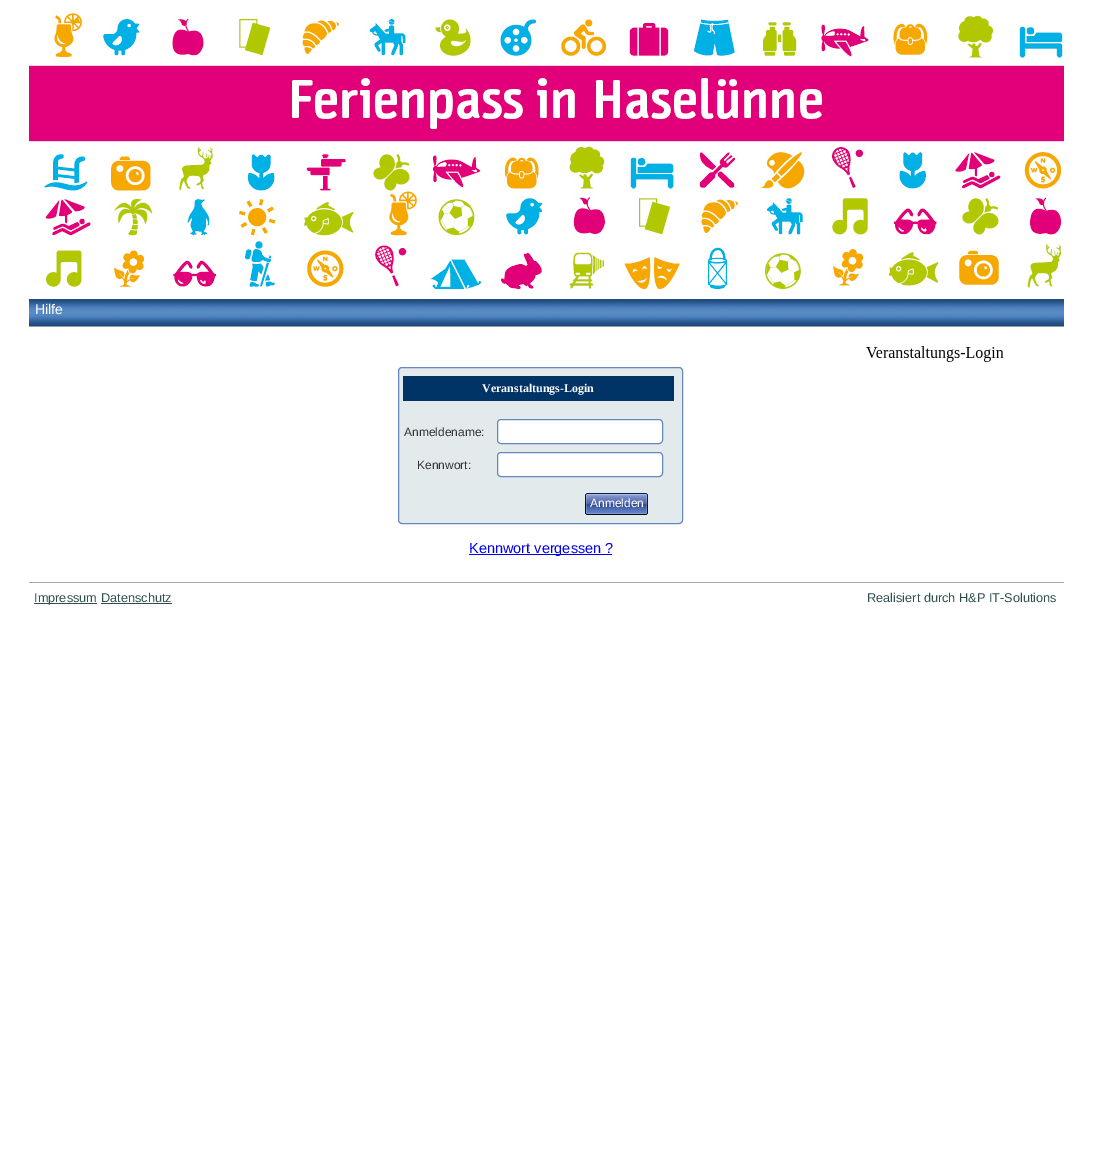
%!PS-Adobe-3.0
%%BoundingBox: 0 0 1093 1172
%%LanguageLevel: 3
%%Pages: 1
%%EndComments
%%BeginProlog
/f { fill } bind def
/S { stroke } bind def
/q { gsave } bind def
/Q { grestore } bind def
/fn { [ exch dup neg 0 0 3 -1 roll 0 0 ] selectfont } def
/tx { moveto show } def
/bx { rectfill } def
/rr { 5 dict begin { /r /h /w /y /x } { exch def } forall
  x r add y moveto x w add y 2 copy h add r arct x w add y h add x 1 index r arct
  x y h add x y r arct x y 2 copy exch w add exch r arct closepath end } def
/im { 5 dict begin { /h /w /y /x /name } { exch def } forall
  gsave x y translate w h scale
  w h 8 [w 0 0 h 0 0] name (r) file false 3 colorimage grestore end } def
%%EndProlog
%%BeginSetup
<< /PageSize [1093 1172] >> setpagedevice
%%EndSetup
%%Page: 1 1
0 1172 translate 1 -1 scale
4 setmiterlimit
1 setgray
0 0 1093 1172 bx
(image0.raw) 29 10 1035 317 im
/LiberationSans-Regular 14 fn
(Hilfe) 35 314 tx
(image1.raw) 866 346 138 16 im
0.89 0.918 0.922 setrgbcolor
398.5 367.5 284 156 3.5 rr q f Q
0.404 0.533 0.745 setrgbcolor
S
0 0.2 0.4 setrgbcolor
403 376 271 25 bx
/LiberationSerif-Bold 12 fn
1 setgray
(Veranstaltungs-Login) 482 392 tx
/LiberationSans-Regular 12 fn
0.2 setgray
(Anmeldename:) 404 436 tx
1 setgray
497.5 419.5 165 24 3.5 rr q f Q
0.404 0.533 0.745 setrgbcolor
S
0.2 setgray
(Kennwort:) 417 469 tx
1 setgray
497.5 452.5 165 24 3.5 rr q f Q
0.404 0.533 0.745 setrgbcolor
S
(image2.raw) 645 493 3 22 im
(image3.raw) 585 493 60 22 im
1 setgray
(Anmelden) 590 507 tx
0 0 0.933 setrgbcolor
469 554 143 1 bx
/LiberationSans-Regular 14.5 fn
(Kennwort vergessen ?) 469 553 tx
0.663 setgray
29 582 1035 1 bx
0.184 0.31 0.31 setrgbcolor
34 603 63 1 bx
/LiberationSans-Regular 12.75 fn
(Impressum) 34 602 tx
(Datenschutz) 101 602 tx
101 603 71 1 bx
(Realisiert durch H&P IT-Solutions) 867 602 tx
showpage
%%EOF
